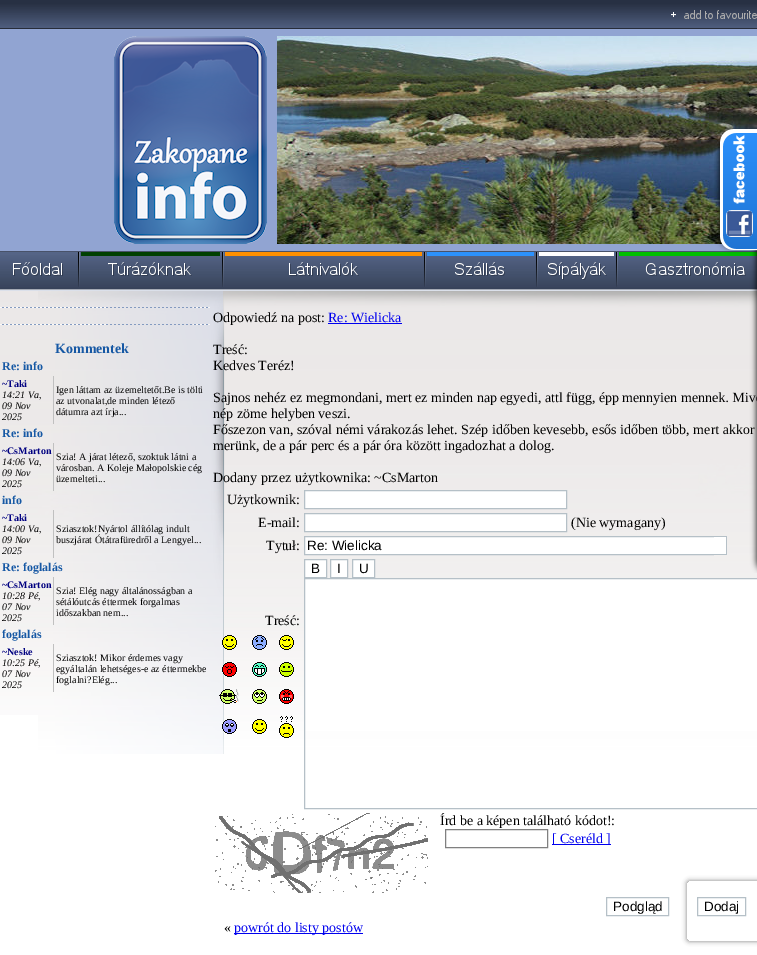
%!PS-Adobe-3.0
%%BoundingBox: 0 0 757 955
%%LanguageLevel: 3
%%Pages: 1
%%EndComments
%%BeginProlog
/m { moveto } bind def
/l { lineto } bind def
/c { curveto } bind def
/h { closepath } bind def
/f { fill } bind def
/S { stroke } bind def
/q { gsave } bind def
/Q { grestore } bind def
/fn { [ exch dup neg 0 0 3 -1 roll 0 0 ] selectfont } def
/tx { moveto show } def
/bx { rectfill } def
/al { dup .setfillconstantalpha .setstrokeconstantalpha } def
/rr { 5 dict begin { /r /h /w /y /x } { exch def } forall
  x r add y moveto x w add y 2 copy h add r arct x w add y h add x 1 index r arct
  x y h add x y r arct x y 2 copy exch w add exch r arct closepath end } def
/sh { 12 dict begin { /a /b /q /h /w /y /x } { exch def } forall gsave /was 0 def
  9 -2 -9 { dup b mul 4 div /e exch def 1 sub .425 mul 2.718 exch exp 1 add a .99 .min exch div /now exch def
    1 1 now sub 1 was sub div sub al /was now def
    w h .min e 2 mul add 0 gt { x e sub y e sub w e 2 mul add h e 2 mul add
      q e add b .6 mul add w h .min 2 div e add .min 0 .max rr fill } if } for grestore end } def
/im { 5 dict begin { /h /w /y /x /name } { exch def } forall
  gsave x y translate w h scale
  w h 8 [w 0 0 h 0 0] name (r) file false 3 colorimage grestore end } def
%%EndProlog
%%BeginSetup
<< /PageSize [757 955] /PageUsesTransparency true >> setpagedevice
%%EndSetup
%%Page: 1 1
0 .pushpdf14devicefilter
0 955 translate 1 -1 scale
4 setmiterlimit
1 setgray
0 0 757 955 bx
(image0.raw) 0 0 757 715 im
(image4.raw) 277 36 480 208 im
(image10.raw) 617 252 140 33 im
(image11.raw) 38 291 719 463 im
/LiberationSerif-Regular 14 fn
0 setgray
(Sajnos nehéz ez megmondani, mert ez minden nap egyedi, attl függ, épp mennyien mennek. Miv) 213 402 tx
(Főszezon van, szóval némi várakozás lehet. Szép időben kevesebb, esős időben több, mert akkor) 213 434 tx
1 setgray
304.5 536.5 m 726.5 536.5 l 726.5 554.5 l 304.5 554.5 l h q f Q
0.71 0.753 0.78 setrgbcolor
S
(image1.raw) 714 124 43 449 im
(image2.raw) 671 10 86 9 im
(image3.raw) 114 36 153 208 im
(image5.raw) 13 252 66 35 im
(image6.raw) 79 252 144 35 im
(image7.raw) 223 252 202 35 im
(image8.raw) 425 252 112 35 im
(image9.raw) 537 252 80 35 im
(image12.raw) 0 307 210 1 im
(image13.raw) 0 324 210 1 im
/LiberationSerif-Bold 14 fn
0.086 0.345 0.643 setrgbcolor
(Kommentek) 55 353 tx
/LiberationSerif-Bold 12 fn
(Re: info) 2 370 tx
0.753 setgray
53 376 1 48 bx
/LiberationSerif-Bold 10 fn
0 0 0.502 setrgbcolor
(~Taki) 2 387 tx
/LiberationSerif-Italic 10 fn
0 setgray
(14:21 Va,) 2 398 tx
(09 Nov) 2 409 tx
(2025) 2 420 tx
/LiberationSerif-Regular 10 fn
(Igen láttam az üzemeltetőt.Be is tölti) 56 393 tx
(az utvonalat,de minden létező) 56 404 tx
(dátumra azt írja...) 56 415 tx
/LiberationSerif-Bold 12 fn
0.086 0.345 0.643 setrgbcolor
(Re: info) 2 437 tx
0.753 setgray
53 443 1 48 bx
/LiberationSerif-Bold 10 fn
0 0 0.502 setrgbcolor
(~CsMarton) 2 454 tx
/LiberationSerif-Italic 10 fn
0 setgray
(14:06 Va,) 2 465 tx
(09 Nov) 2 476 tx
(2025) 2 487 tx
/LiberationSerif-Regular 10 fn
(Szia! A járat létező, szoktuk látni a) 56 460 tx
(városban. A Koleje Małopolskie cég) 56 471 tx
(üzemelteti...) 56 482 tx
/LiberationSerif-Bold 12 fn
0.086 0.345 0.643 setrgbcolor
(info) 2 504 tx
0.753 setgray
53 510 1 48 bx
/LiberationSerif-Bold 10 fn
0 0 0.502 setrgbcolor
(~Taki) 2 521 tx
/LiberationSerif-Italic 10 fn
0 setgray
(14:00 Va,) 2 532 tx
(09 Nov) 2 543 tx
(2025) 2 554 tx
/LiberationSerif-Regular 10 fn
(Sziasztok!Nyártol állítólag indult) 56 532 tx
(buszjárat Ótátrafüredről a Lengyel...) 56 543 tx
/LiberationSerif-Bold 12 fn
0.086 0.345 0.643 setrgbcolor
(Re: foglalás) 2 571 tx
0.753 setgray
53 577 1 48 bx
/LiberationSerif-Bold 10 fn
0 0 0.502 setrgbcolor
(~CsMarton) 2 588 tx
/LiberationSerif-Italic 10 fn
0 setgray
(10:28 Pé,) 2 599 tx
(07 Nov) 2 610 tx
(2025) 2 621 tx
/LiberationSerif-Regular 10 fn
(Szia! Elég nagy általánosságban a) 56 594 tx
(sétálóutcás éttermek forgalmas) 56 605 tx
(időszakban nem...) 56 616 tx
/LiberationSerif-Bold 12 fn
0.086 0.345 0.643 setrgbcolor
(foglalás) 2 638 tx
0.753 setgray
53 644 1 48 bx
/LiberationSerif-Bold 10 fn
0 0 0.502 setrgbcolor
(~Neske) 2 655 tx
/LiberationSerif-Italic 10 fn
0 setgray
(10:25 Pé,) 2 666 tx
(07 Nov) 2 677 tx
(2025) 2 688 tx
/LiberationSerif-Regular 10 fn
(Sziasztok! Mikor érdemes vagy) 56 661 tx
(egyáltalán lehetséges-e az éttermekbe) 56 672 tx
(foglalni?Elég...) 56 683 tx
/LiberationSerif-Regular 14 fn
(Odpowiedź na post:) 213 322 tx
0 0 0.933 setrgbcolor
(Re: Wielicka) 328 322 tx
328 323 74 1 bx
0 setgray
(Treść:) 213 354 tx
(Kedves Teréz!) 213 370 tx
(nép zöme helyben veszi.) 213 418 tx
(merünk, de a pár perc és a pár óra között ingadozhat a dolog.) 213 450 tx
(Dodany przez użytkownika: ~CsMarton) 213 482 tx
(Użytkownik:) 227 504 tx
1 setgray
304.5 490.5 m 566.5 490.5 l 566.5 508.5 l 304.5 508.5 l h q f Q
0.71 0.753 0.78 setrgbcolor
S
0 setgray
(E-mail:) 258 527 tx
1 setgray
304.5 513.5 m 566.5 513.5 l 566.5 531.5 l 304.5 531.5 l h q f Q
0.71 0.753 0.78 setrgbcolor
S
0 setgray
(\(Nie wymagany\)) 571 527 tx
(Tytuł:) 266 550 tx
/LiberationSans-Regular 13.5 fn
(Re: Wielicka) 307 550 tx
1 setgray
304.5 559.5 m 326.5 559.5 l 326.5 577.5 l 304.5 577.5 l h q f Q
0.71 0.753 0.78 setrgbcolor
S
0 setgray
(B) 311 573 tx
1 setgray
330.5 559.5 m 347.5 559.5 l 347.5 577.5 l 330.5 577.5 l h q f Q
0.71 0.753 0.78 setrgbcolor
S
0 setgray
(I) 337 573 tx
1 setgray
352.5 559.5 m 374.5 559.5 l 374.5 577.5 l 352.5 577.5 l h q f Q
0.71 0.753 0.78 setrgbcolor
S
0 setgray
(U) 359 573 tx
1 setgray
305 579 452 152 bx
0.71 0.753 0.78 setrgbcolor
304.5 578.5 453 230 rectstroke
/LiberationSerif-Regular 14 fn
0 setgray
(Treść:) 265 625 tx
(image14.raw) 222 635 15 15 im
(image15.raw) 252 635 15 15 im
(image16.raw) 279 635 15 15 im
(image17.raw) 222 662 15 15 im
(image18.raw) 252 662 15 15 im
(image19.raw) 279 662 15 15 im
(image20.raw) 219 689 20 15 im
(image21.raw) 252 689 15 15 im
(image22.raw) 279 689 15 15 im
(image23.raw) 222 719 15 15 im
(image24.raw) 252 719 15 15 im
(image25.raw) 279 716 15 22 im
(image26.raw) 215 813 213 80 im
(Írd be a képen található kódot!:) 440 825 tx
0.502 setgray
445.5 829.5 102 18 rectstroke
0 0 0.933 setrgbcolor
552 844 59 1 bx
([ Cseréld ]) 552 843 tx
0.71 0.753 0.78 setrgbcolor
606.5 897.5 62 18 rectstroke
/LiberationSans-Regular 13.5 fn
0 setgray
(Podgląd) 613 911 tx
0.71 0.753 0.78 setrgbcolor
697.5 897.5 48 18 rectstroke
0 setgray
(Dodaj) 704 911 tx
/LiberationSerif-Regular 14 fn
(«) 224 932 tx
0 0 0.933 setrgbcolor
234 933 129 1 bx
(powrót do listy postów) 234 932 tx
q
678 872 m 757 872 l 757 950 l 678 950 l h 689 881 m 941 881 l 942 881 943 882 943 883 c 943 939 l 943 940 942 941 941 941 c 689 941 l 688 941 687 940 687 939 c 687 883 l 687 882 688 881 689 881 c h eoclip newpath
0.502 setgray
687 881 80 60 2 2.5 1 sh
Q
.poppdf14devicefilter showpage
%%EOF
